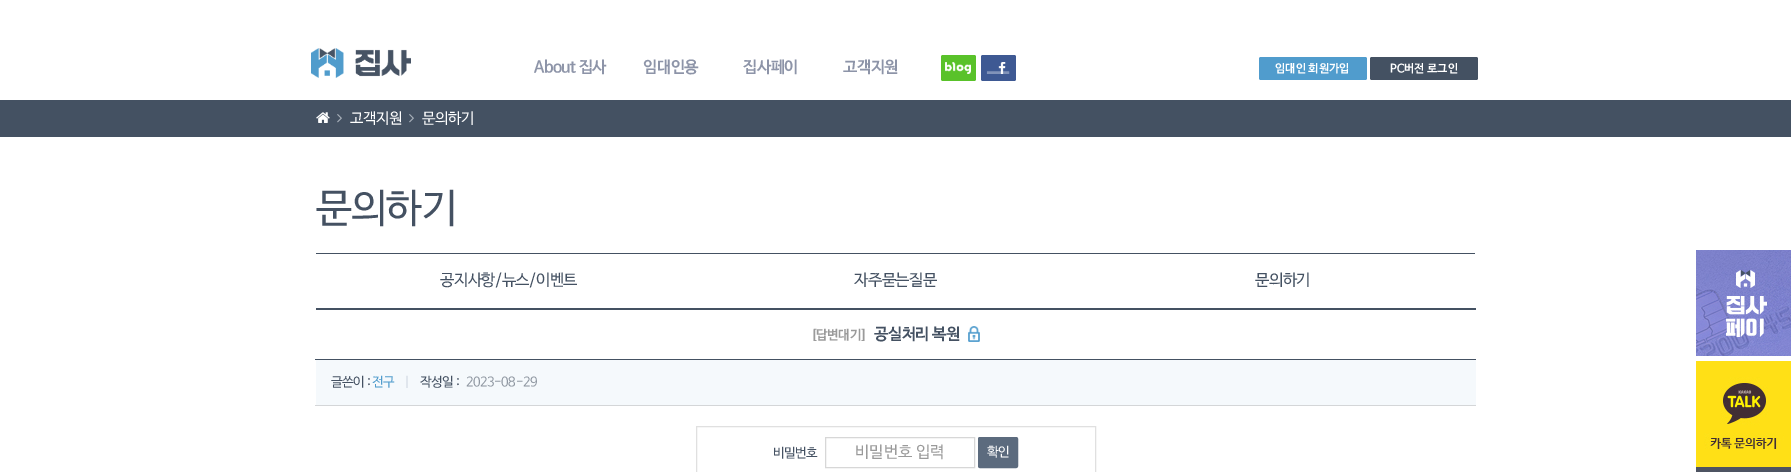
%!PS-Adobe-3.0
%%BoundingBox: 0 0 1791 472
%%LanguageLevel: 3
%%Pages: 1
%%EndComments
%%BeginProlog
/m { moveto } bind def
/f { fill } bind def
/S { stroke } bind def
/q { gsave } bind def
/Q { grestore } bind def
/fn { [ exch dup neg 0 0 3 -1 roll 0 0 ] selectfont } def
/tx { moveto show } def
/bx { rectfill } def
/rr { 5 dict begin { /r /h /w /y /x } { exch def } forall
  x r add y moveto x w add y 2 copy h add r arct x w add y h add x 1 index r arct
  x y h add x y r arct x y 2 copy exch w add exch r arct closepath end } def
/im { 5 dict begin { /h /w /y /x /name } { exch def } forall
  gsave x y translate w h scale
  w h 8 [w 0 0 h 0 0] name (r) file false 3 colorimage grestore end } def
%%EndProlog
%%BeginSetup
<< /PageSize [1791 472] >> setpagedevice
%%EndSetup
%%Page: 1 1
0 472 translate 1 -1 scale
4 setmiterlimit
1 setgray
0 0 1791 472 bx
(image0.raw) 311 48 100 30 im
/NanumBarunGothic-Bold 16 fn
0.553 0.58 0.659 setrgbcolor
534 72 m -0.5 0 (About 집사) ashow
643 72 m -0.5 0 (임대인용) ashow
743 72 m -0.5 0 (집사페이) ashow
843 72 m -0.5 0 (고객지원) ashow
0.349 0.761 0.165 setrgbcolor
941 55 35 26 2 rr f
(image1.raw) 945 62 26 12 im
0.243 0.349 0.576 setrgbcolor
981 55 35 26 2 rr f
(image2.raw) 986 62 24 12 im
0.314 0.612 0.804 setrgbcolor
1259 57 108 23 2 rr f
/NanumBarunGothic-Bold 11.5 fn
1 setgray
(임대인 회원가입) 1275 72 tx
0.267 0.318 0.384 setrgbcolor
1370 57 108 23 2 rr f
1 setgray
(PC버전 로그인) 1390 72 tx
0.267 0.318 0.384 setrgbcolor
0 100 1791 37 bx
(image3.raw) 316 112 14 11 im
(image4.raw) 337 114 5 9 im
/NanumBarunGothic-Regular 15 fn
1 setgray
350 123 m -0.5 0 (고객지원) ashow
(image4.raw) 409 114 5 9 im
422 123 m -0.5 0 (문의하기) ashow
/NanumBarunGothic-Regular 40 fn
0.267 0.318 0.384 setrgbcolor
316 221 m -0.5 0 (문의하기) ashow
316 253 1159 1 bx
/NanumBarunGothic-Regular 16 fn
440 285 m -0.5 0 (공지사항/뉴스/이벤트) ashow
854 285 m -0.5 0 (자주묻는질문) ashow
1255 285 m -0.5 0 (문의하기) ashow
316 308 1160 2 bx
315 359 1161 1 bx
/NanumBarunGothic-Bold 13 fn
0.604 setgray
811 339 m -0.5 0 ([답변대기]) ashow
/NanumBarunGothic-Bold 16 fn
0.267 0.318 0.384 setrgbcolor
874 339 m -0.5 0 (공실처리 복원) ashow
(image5.raw) 968 326 12 16 im
0.961 0.976 0.988 setrgbcolor
316 360 1160 45 bx
0.831 0.839 0.847 setrgbcolor
315 405 1161 1 bx
/NanumBarunGothic-Regular 13 fn
0.267 0.318 0.384 setrgbcolor
331 386 m -0.5 0 (글쓴이 :) ashow
0.314 0.612 0.804 setrgbcolor
372 386 m -0.5 0 (전구) ashow
0.812 0.843 0.882 setrgbcolor
404 386 m -0.5 0 (|) ashow
0.267 0.318 0.384 setrgbcolor
420 386 m -0.5 0 (작성일 :) ashow
0.561 0.592 0.631 setrgbcolor
466 386 m -0.5 0 (2023-08-29) ashow
0.878 setgray
696.5 426.5 399 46 rectstroke
0.267 0.318 0.384 setrgbcolor
773 457 m -0.5 0 (비밀번호) ashow
0.843 setgray
825.5 437.5 149 30 rectstroke
/NanumBarunGothic-Regular 16 fn
0.604 setgray
(비밀번호 입력) 855 457 tx
0.361 0.42 0.494 setrgbcolor
978.5 437.5 39 30 1.5 rr q f Q
S
/NanumBarunGothic-Regular 13 fn
1 setgray
987 456 m -0.5 0 (확인) ashow
(image6.raw) 1696 250 95 106 im
(image7.raw) 1696 361 95 106 im
0.306 0.329 0.384 setrgbcolor
1696 467 95 5 bx
showpage
%%EOF
